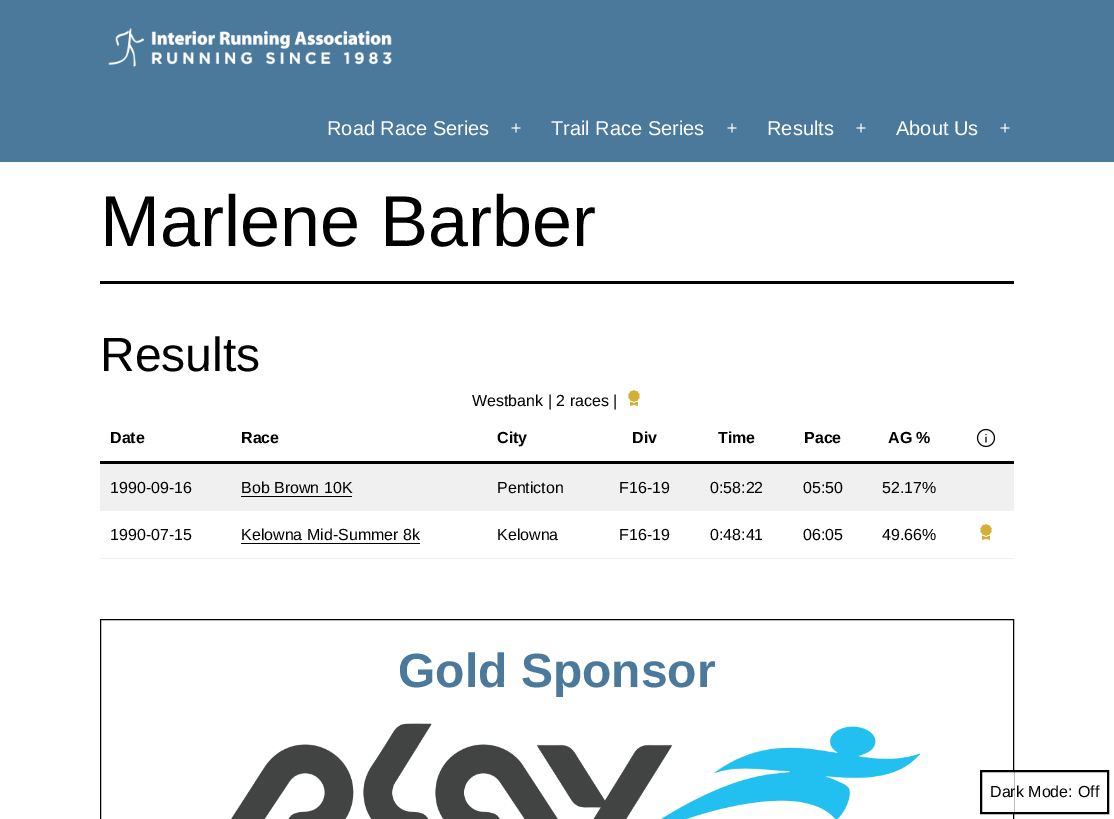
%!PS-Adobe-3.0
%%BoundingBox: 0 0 1114 819
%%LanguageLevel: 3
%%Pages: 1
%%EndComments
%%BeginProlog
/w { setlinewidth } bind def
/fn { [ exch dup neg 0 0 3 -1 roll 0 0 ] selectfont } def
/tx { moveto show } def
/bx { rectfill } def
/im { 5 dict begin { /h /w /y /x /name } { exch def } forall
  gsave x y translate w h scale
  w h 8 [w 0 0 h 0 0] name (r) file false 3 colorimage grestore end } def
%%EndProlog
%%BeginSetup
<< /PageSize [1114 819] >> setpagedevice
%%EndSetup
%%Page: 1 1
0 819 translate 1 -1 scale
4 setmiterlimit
1 setgray
0 0 1114 819 bx
0.29 0.475 0.612 setrgbcolor
0 0 1114 162 bx
(image0.raw) 108 28 284 39 im
/LiberationSans-Regular 20 fn
1 setgray
(Road Race Series) 327 135 tx
(image1.raw) 511 123 10 10 im
(Trail Race Series) 551 135 tx
(image1.raw) 727 123 10 10 im
(Results) 767 135 tx
(image1.raw) 856 123 10 10 im
(About Us) 896 135 tx
(image1.raw) 1000 123 10 10 im
0 setgray
100 281 914 3 bx
/LiberationSans-Regular 72 fn
(Marlene Barber) 100 246 tx
/LiberationSans-Regular 48 fn
(Results) 100 371 tx
0.941 setgray
100 558 914 1 bx
/LiberationSans-Regular 16 fn
0 setgray
(Westbank | 2 races |) 472 406 tx
(image2.raw) 628 390 12 16 im
100 461 914 3 bx
/LiberationSans-Bold 16 fn
(Date) 110 443 tx
(Race) 241 443 tx
(City) 497 443 tx
(Div) 632 443 tx
(Time) 718 443 tx
(Pace) 804 443 tx
(AG %) 888 443 tx
(image3.raw) 976 428 20 20 im
0.941 setgray
100 464 914 47 bx
/LiberationSans-Regular 16 fn
0 setgray
(1990-09-16) 110 493 tx
(Bob Brown 10K) 241 493 tx
241 496 111 1 bx
(Penticton) 497 493 tx
(F16-19) 619 493 tx
(0:58:22) 710 493 tx
(05:50) 803 493 tx
(52.17%) 882 493 tx
(1990-07-15) 110 540 tx
(Kelowna Mid-Summer 8k) 241 540 tx
241 543 179 1 bx
(Kelowna) 497 540 tx
(F16-19) 619 540 tx
(0:48:41) 710 540 tx
(06:05) 803 540 tx
(49.66%) 882 540 tx
(image2.raw) 980 524 12 16 im
100.5 619.5 913 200 rectstroke
/LiberationSans-Bold 48 fn
0.29 0.475 0.612 setrgbcolor
(Gold Sponsor) 398 687 tx
(image4.raw) 231 723 689 96 im
1 setgray
1013 772 1 40 bx
0 setgray
2 w
981 771 127 42 rectstroke
/LiberationSans-Regular 16 fn
(Dark Mode:) 990 797 tx
(Off) 1078 797 tx
showpage
%%EOF
